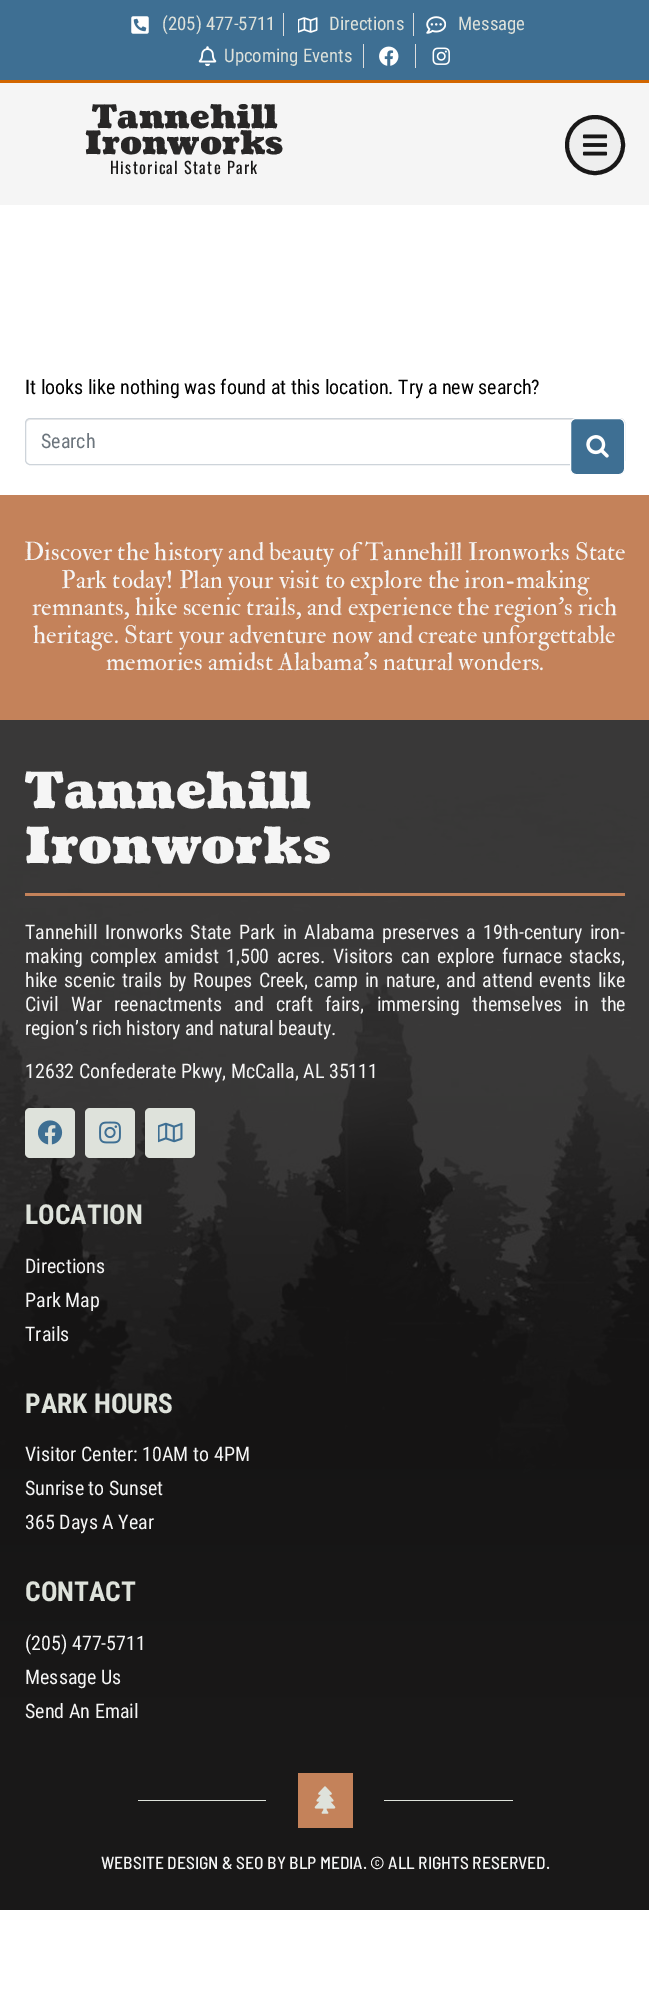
%!PS-Adobe-3.0
%%BoundingBox: 0 0 649 2005
%%LanguageLevel: 3
%%Pages: 1
%%EndComments
%%BeginProlog
/m { moveto } bind def
/l { lineto } bind def
/c { curveto } bind def
/h { closepath } bind def
/f { fill } bind def
/S { stroke } bind def
/q { gsave } bind def
/Q { grestore } bind def
/w { setlinewidth } bind def
/fn { [ exch dup neg 0 0 3 -1 roll 0 0 ] selectfont } def
/tx { moveto show } def
/bx { rectfill } def
/ci { newpath 0 360 arc closepath } def
/rr { 5 dict begin { /r /h /w /y /x } { exch def } forall
  x r add y moveto x w add y 2 copy h add r arct x w add y h add x 1 index r arct
  x y h add x y r arct x y 2 copy exch w add exch r arct closepath end } def
/im { 5 dict begin { /h /w /y /x /name } { exch def } forall
  gsave x y translate w h scale
  w h 8 [w 0 0 h 0 0] name (r) file false 3 colorimage grestore end } def
%%EndProlog
%%BeginSetup
<< /PageSize [649 2005] >> setpagedevice
%%EndSetup
%%Page: 1 1
0 2005 translate 1 -1 scale
4 setmiterlimit
1 setgray
0 0 649 2005 bx
0.243 0.435 0.576 setrgbcolor
0 0 649 80 bx
0.824 0.4 0 setrgbcolor
0 80 649 3 bx
(image0.raw) 131 16 18 18 im
/RobotoCondensed-Regular 18.75 fn
0.871 0.886 0.859 setrgbcolor
(\(205\) 477-5711) 162 30 tx
0.867 setgray
283 13 1 23 bx
(image1.raw) 298 17 20 16 im
0.871 0.886 0.859 setrgbcolor
(Directions) 329 30 tx
0.867 setgray
413 13 1 23 bx
(image2.raw) 426 16 20 18 im
0.871 0.886 0.859 setrgbcolor
(Message) 458 30 tx
(image3.raw) 198 46 19 20 im
(Upcoming Events) 224 62 tx
0.867 setgray
363 44 1 24 bx
(image4.raw) 379 46 20 20 im
415 44 1 24 bx
(image5.raw) 432 47 18 18 im
0.961 setgray
0 83 649 122 bx
/Coustard-Black 32.5 fn
0.157 0.153 0.153 setrgbcolor
(Tannehill) 92 128 tx
(Ironworks) 85 154 tx
/Oswald-Regular 16.25 fn
0.098 0.094 0.094 setrgbcolor
110 174 m 1.25 0 (Historical State Park) ashow
0.933 setgray
595 145 28 ci q f Q
0.098 0.094 0.094 setrgbcolor
4 w
S
(image6.raw) 582 134 26 22 im
/RobotoCondensed-Regular 20 fn
0 setgray
(It looks like nothing was found at this location. Try a new search?) 25 394 tx
0.925 setgray
30 420 m 620 420 l 622 420 624 422 624 424 c 624 423 l 624 421 622 419 620 419 c 30 419 l 28 419 26 421 26 423 c 26 424 l 26 422 28 420 30 420 c h f
0.808 0.831 0.855 setrgbcolor
1 w
25.5 418.5 599 46 4.5 rr S
0.424 0.459 0.49 setrgbcolor
(Search) 41 448 tx
0.243 0.435 0.576 setrgbcolor
570.5 418.5 54 56 5.5 rr q f Q
1 setgray
S
(image7.raw) 586 435 23 23 im
0.769 0.51 0.353 setrgbcolor
0 495 649 225 bx
/IMFELLDoublePica-Regular 25 fn
0.961 setgray
(Discover the history and beauty of Tannehill Ironworks State) 24 560 tx
(Park today! Plan your visit to explore the iron-making) 61 588 tx
(remnants, hike scenic trails, and experience the region's rich) 32 615 tx
(heritage. Start your adventure now and create unforgettable) 33 643 tx
(memories amidst Alabama's natural wonders.) 106 670 tx
(image8.raw) 0 720 649 1015 im
0.769 0.51 0.353 setrgbcolor
25 893 600 3 bx
/Coustard-Black 50 fn
0.961 setgray
(Tannehill) 25 808 tx
(Ironworks) 25 863 tx
/RobotoCondensed-Regular 20 fn
25 939 m 3 0 32 (Tannehill Ironworks State Park in Alabama preserves a 19th-century iron-) widthshow
25 963 m 2.75 0 32 (making complex amidst 1,500 acres. Visitors can explore furnace stacks,) widthshow
25 987 m 2 0 32 (hike scenic trails by Roupes Creek, camp in nature, and attend events like) widthshow
25 1011 m 7.5 0 32 (Civil War reenactments and craft fairs, immersing themselves in the) widthshow
(region’s rich history and natural beauty.) 25 1035 tx
(12632 Confederate Pkwy, McCalla, AL 35111) 25 1078 tx
0.871 0.886 0.859 setrgbcolor
25 1108 50 50 5 rr f
(image9.raw) 38 1120 25 25 im
85 1108 50 50 5 rr f
(image10.raw) 99 1121 22 23 im
145 1108 50 50 5 rr f
(image11.raw) 158 1122 25 21 im
/RobotoCondensed-Bold 27.5 fn
(LOCATION) 25 1224 tx
/RobotoCondensed-Regular 20 fn
0.961 setgray
(Directions) 25 1273 tx
(Park Map) 25 1307 tx
(Trails) 25 1341 tx
/RobotoCondensed-Bold 27.5 fn
0.871 0.886 0.859 setrgbcolor
(PARK HOURS) 25 1413 tx
/RobotoCondensed-Regular 20 fn
0.961 setgray
(Visitor Center: 10AM to 4PM) 25 1461 tx
(Sunrise to Sunset) 25 1495 tx
(365 Days A Year) 25 1529 tx
/RobotoCondensed-Bold 27.5 fn
0.871 0.886 0.859 setrgbcolor
(CONTACT) 25 1601 tx
/RobotoCondensed-Regular 20 fn
0.961 setgray
(\(205\) 477-5711) 25 1650 tx
(Message Us) 25 1684 tx
(Send An Email) 25 1718 tx
0.098 0.094 0.094 setrgbcolor
0 1735 649 175 bx
0.871 0.886 0.859 setrgbcolor
138 1800 128 1 bx
0.769 0.51 0.353 setrgbcolor
298 1773 55 55 bx
(image12.raw) 314 1786 22 28 im
0.871 0.886 0.859 setrgbcolor
384 1800 129 1 bx
/BarlowSemiCondensed-Medium 17.5 fn
0.961 setgray
(WEBSITE DESIGN & SEO BY BLP MEDIA. © ALL RIGHTS RESERVED.) 101 1869 tx
showpage
%%EOF
